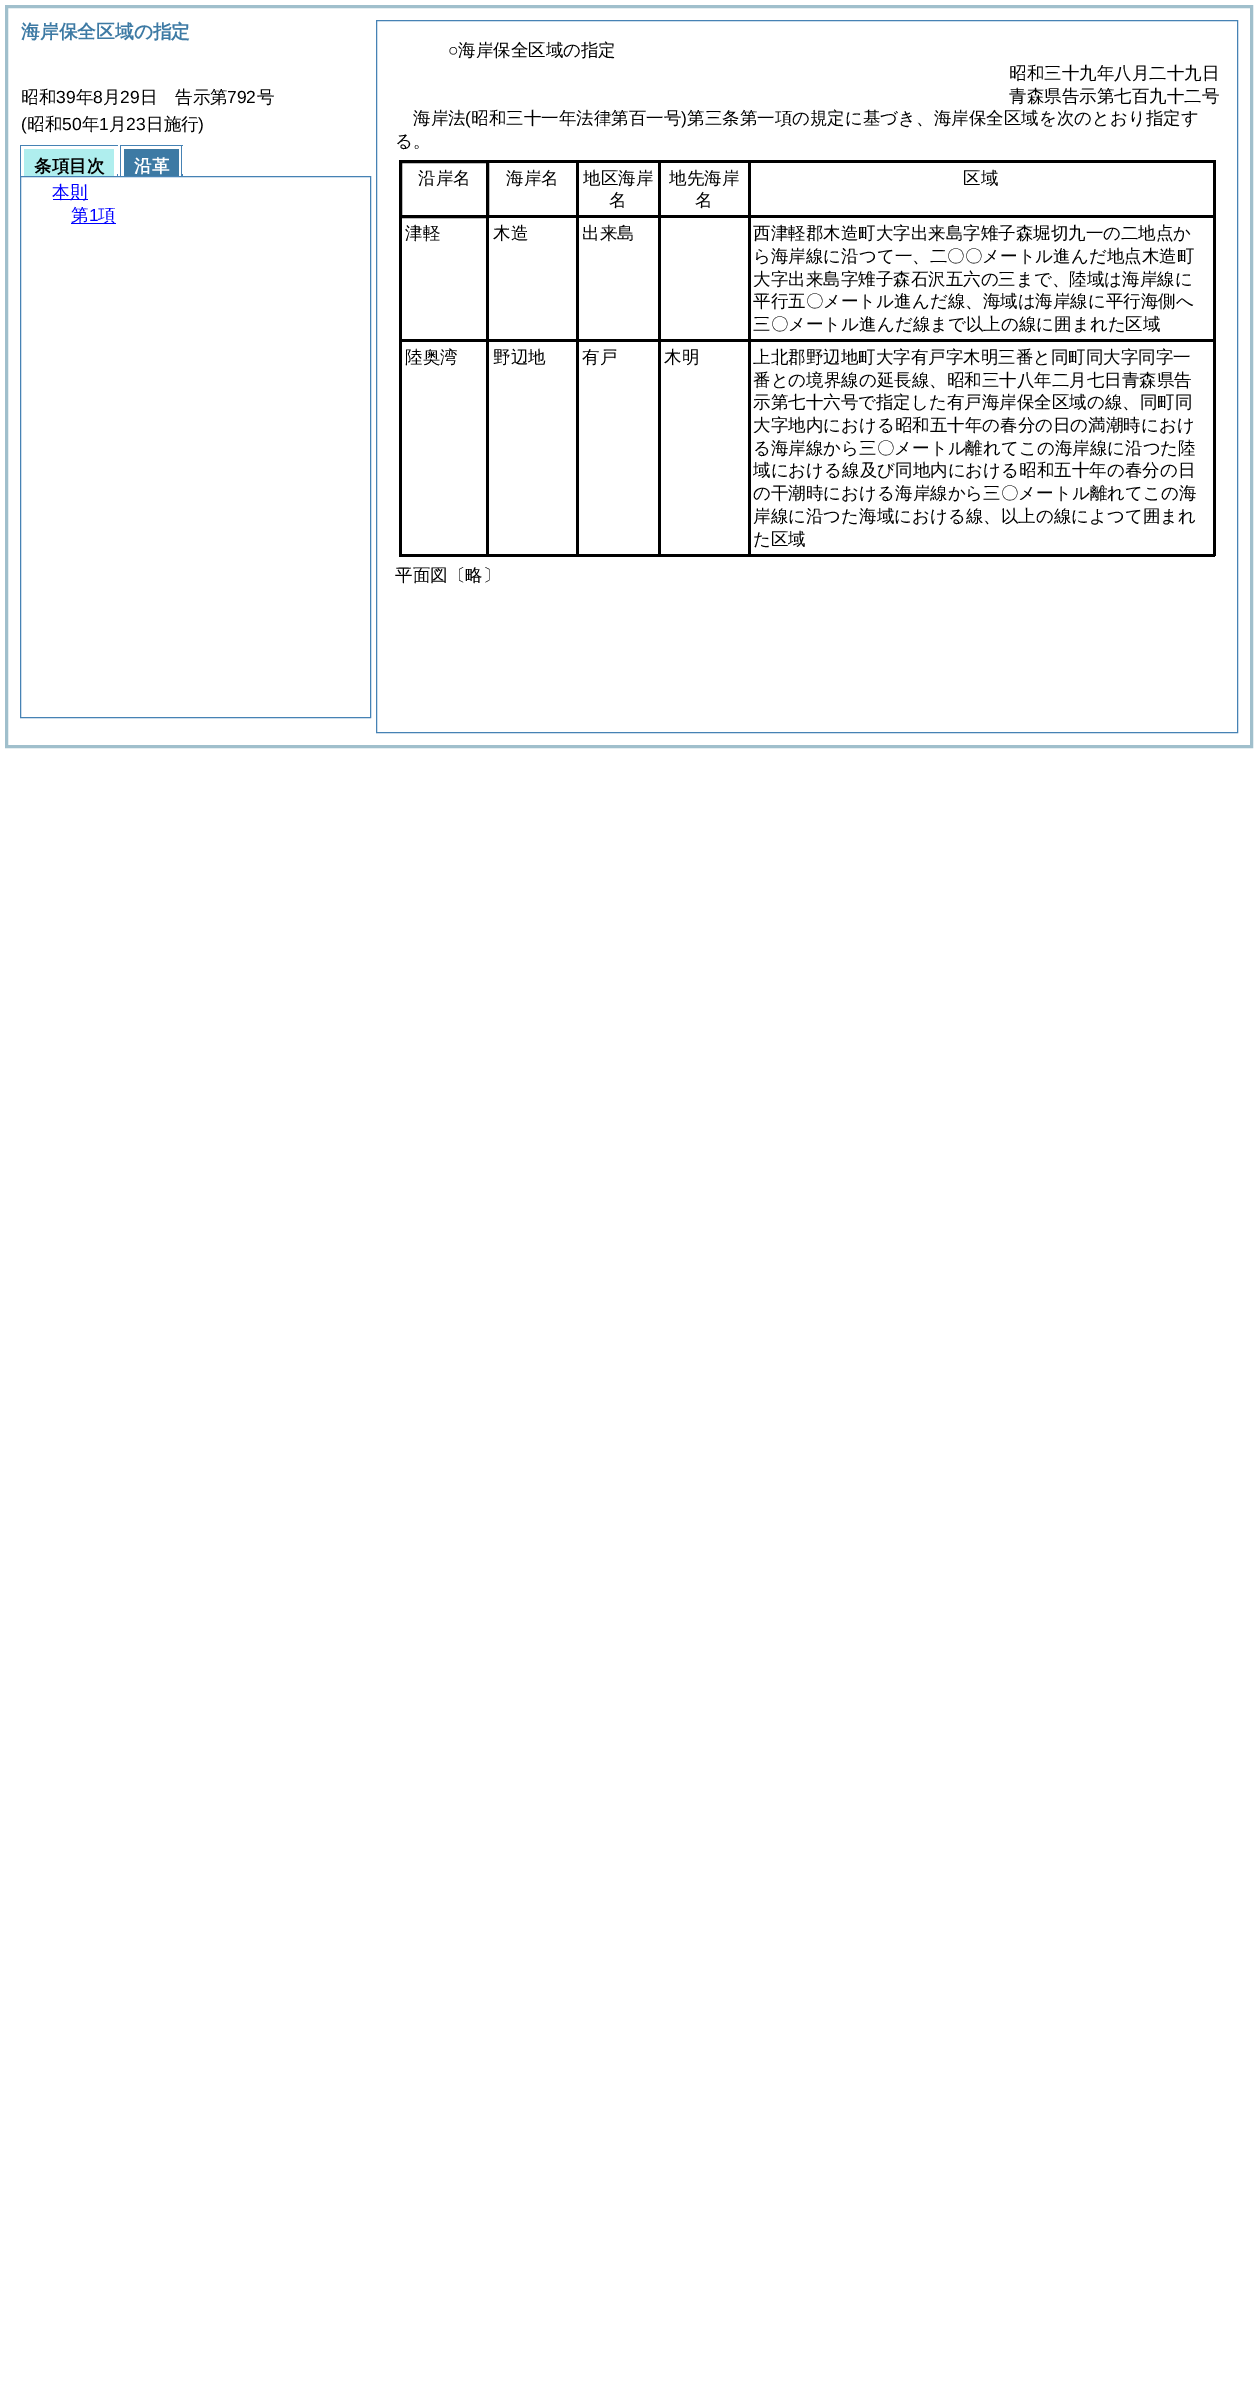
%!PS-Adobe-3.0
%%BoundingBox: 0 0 1257 2386
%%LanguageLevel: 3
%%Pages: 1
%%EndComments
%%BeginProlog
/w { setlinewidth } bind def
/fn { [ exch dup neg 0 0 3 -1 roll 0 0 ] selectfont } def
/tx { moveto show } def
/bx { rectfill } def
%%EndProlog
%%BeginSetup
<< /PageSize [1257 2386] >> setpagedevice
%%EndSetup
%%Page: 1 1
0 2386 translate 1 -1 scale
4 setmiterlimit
1 setgray
0 0 1257 2386 bx
0.627 0.749 0.8 setrgbcolor
3 w
6.5 6.5 1245 740 rectstroke
/WenQuanYiZenHei-Bold 18.75 fn
0.239 0.478 0.643 setrgbcolor
(海岸保全区域の指定) 21 38 tx
/WenQuanYiZenHei-Medium 17.5 fn
0 setgray
(昭和) 21 103 tx
/LiberationSans-Regular 17.5 fn
(39) 56 103 tx
/WenQuanYiZenHei-Medium 17.5 fn
(年) 76 103 tx
/LiberationSans-Regular 17.5 fn
(8) 93 103 tx
/WenQuanYiZenHei-Medium 17.5 fn
(月) 103 103 tx
/LiberationSans-Regular 17.5 fn
(29) 120 103 tx
/WenQuanYiZenHei-Medium 17.5 fn
(日　告示第) 140 103 tx
/LiberationSans-Regular 17.5 fn
(792) 227 103 tx
/WenQuanYiZenHei-Medium 17.5 fn
(号) 257 103 tx
/LiberationSans-Regular 17.5 fn
(\() 21 130 tx
/WenQuanYiZenHei-Medium 17.5 fn
(昭和) 27 130 tx
/LiberationSans-Regular 17.5 fn
(50) 62 130 tx
/WenQuanYiZenHei-Medium 17.5 fn
(年) 82 130 tx
/LiberationSans-Regular 17.5 fn
(1) 99 130 tx
/WenQuanYiZenHei-Medium 17.5 fn
(月) 109 130 tx
/LiberationSans-Regular 17.5 fn
(23) 126 130 tx
/WenQuanYiZenHei-Medium 17.5 fn
(日施行) 146 130 tx
/LiberationSans-Regular 17.5 fn
(\)) 198 130 tx
0.275 0.51 0.706 setrgbcolor
20 145 98 1 bx
117 174 1 2 bx
20 145 1 33 bx
0.686 0.933 0.933 setrgbcolor
24 149 90 27 bx
/WenQuanYiZenHei-Bold 17.5 fn
0 setgray
(条項目次) 34 172 tx
0.275 0.51 0.706 setrgbcolor
120 145 63 1 bx
181 145 1 33 bx
181 174 2 2 bx
120 145 1 33 bx
0.239 0.478 0.643 setrgbcolor
124 149 55 27 bx
1 setgray
(沿革) 134 172 tx
120 177 62 1 bx
0.275 0.51 0.706 setrgbcolor
1 w
20.5 176.5 350 541 rectstroke
0 0 1 setrgbcolor
53 199 35 1 bx
/WenQuanYiZenHei-Medium 17.5 fn
(本則) 52 198 tx
71 223 45 1 bx
(第) 71 221 tx
/LiberationSans-Regular 17.5 fn
(1) 89 221 tx
/WenQuanYiZenHei-Medium 17.5 fn
(項) 98 221 tx
0.275 0.51 0.706 setrgbcolor
376.5 20.5 861 712 rectstroke
/LiberationSans-Regular 17.5 fn
0 setgray
(○) 448 56 tx
/WenQuanYiZenHei-Medium 17.5 fn
(海岸保全区域の指定) 458 56 tx
(昭和三十九年八月二十九日) 1009 79 tx
(青森県告示第七百九十二号) 1009 102 tx
(海岸法) 413 124 tx
/LiberationSans-Regular 17.5 fn
(\() 465 124 tx
/WenQuanYiZenHei-Medium 17.5 fn
(昭和三十一年法律第百一号) 471 124 tx
/LiberationSans-Regular 17.5 fn
(\)) 681 124 tx
/WenQuanYiZenHei-Medium 17.5 fn
(第三条第一項の規定に基づき、海岸保全区域を次のとおり指定す) 687 124 tx
(る。) 395 147 tx
3 w
400.5 161.5 87 55 rectstroke
(沿岸名) 418 184 tx
489 160 171 3 bx
576 160 3 181 bx
489 215 90 3 bx
(海岸名) 506 184 tx
658 160 3 181 bx
579 215 81 3 bx
(地区海岸) 583 184 tx
(名) 609 206 tx
660 160 90 3 bx
748 160 3 181 bx
660 215 90 3 bx
(地先海岸) 669 184 tx
(名) 695 206 tx
750 160 465 3 bx
1213 160 3 181 bx
750 215 465 3 bx
(区域) 963 184 tx
486 218 3 123 bx
399 339 816 3 bx
399 218 3 123 bx
(津軽) 405 239 tx
(木造) 493 239 tx
(出来島) 582 239 tx
(西津軽郡木造町大字出来島字雉子森堀切九一の二地点か) 753 239 tx
(ら海岸線に沿つて一、二〇〇メートル進んだ地点木造町) 753 262 tx
(大字出来島字雉子森石沢五六の三まで、陸域は海岸線に) 753 285 tx
(平行五〇メートル進んだ線、海域は海岸線に平行海側へ) 753 307 tx
(三〇メートル進んだ線まで以上の線に囲まれた区域) 753 330 tx
486 341 3 215 bx
399 554 90 3 bx
399 341 3 215 bx
(陸奥湾) 405 363 tx
576 341 3 215 bx
489 554 90 3 bx
(野辺地) 493 363 tx
658 341 3 215 bx
579 554 81 3 bx
(有戸) 582 363 tx
748 341 3 215 bx
660 554 90 3 bx
(木明) 664 363 tx
1213 341 3 215 bx
750 554 465 3 bx
(上北郡野辺地町大字有戸字木明三番と同町同大字同字一) 753 363 tx
(番との境界線の延長線、昭和三十八年二月七日青森県告) 753 386 tx
(示第七十六号で指定した有戸海岸保全区域の線、同町同) 753 408 tx
(大字地内における昭和五十年の春分の日の満潮時におけ) 753 431 tx
(る海岸線から三〇メートル離れてこの海岸線に沿つた陸) 753 454 tx
(域における線及び同地内における昭和五十年の春分の日) 753 476 tx
(の干潮時における海岸線から三〇メートル離れてこの海) 753 499 tx
(岸線に沿つた海域における線、以上の線によつて囲まれ) 753 522 tx
(た区域) 753 545 tx
(平面図〔略〕) 395 581 tx
showpage
%%EOF
